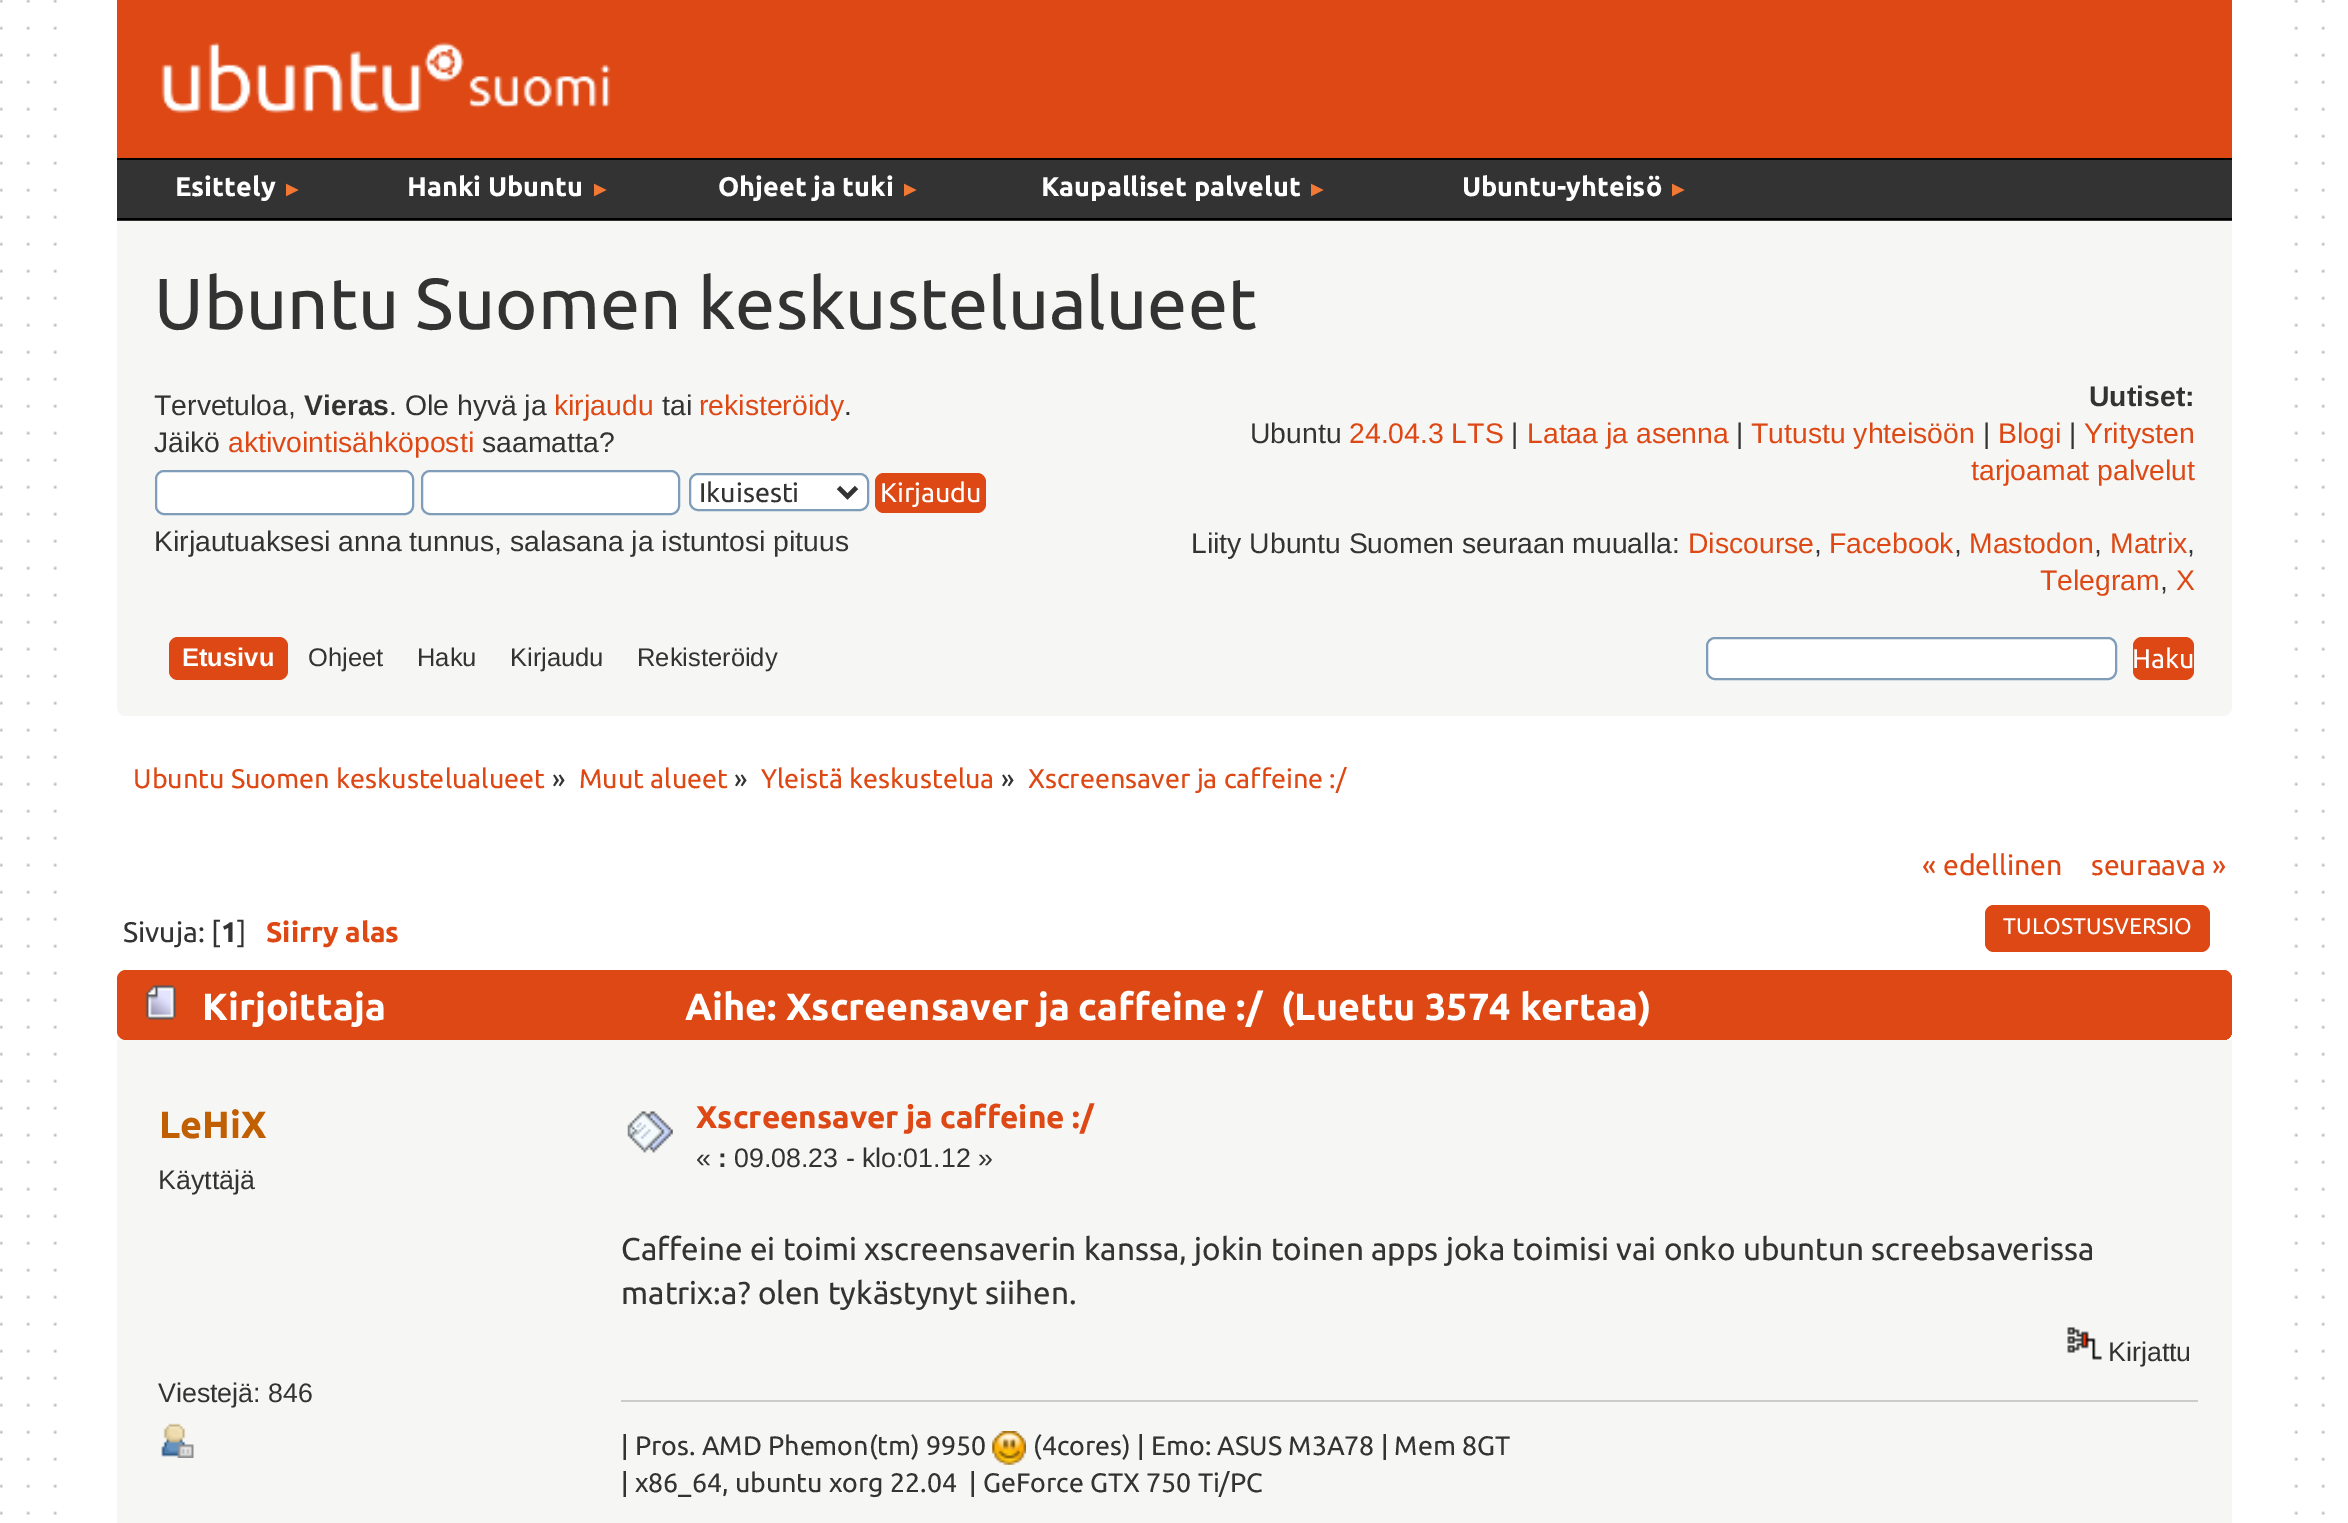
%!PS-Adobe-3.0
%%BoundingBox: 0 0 2348 1523
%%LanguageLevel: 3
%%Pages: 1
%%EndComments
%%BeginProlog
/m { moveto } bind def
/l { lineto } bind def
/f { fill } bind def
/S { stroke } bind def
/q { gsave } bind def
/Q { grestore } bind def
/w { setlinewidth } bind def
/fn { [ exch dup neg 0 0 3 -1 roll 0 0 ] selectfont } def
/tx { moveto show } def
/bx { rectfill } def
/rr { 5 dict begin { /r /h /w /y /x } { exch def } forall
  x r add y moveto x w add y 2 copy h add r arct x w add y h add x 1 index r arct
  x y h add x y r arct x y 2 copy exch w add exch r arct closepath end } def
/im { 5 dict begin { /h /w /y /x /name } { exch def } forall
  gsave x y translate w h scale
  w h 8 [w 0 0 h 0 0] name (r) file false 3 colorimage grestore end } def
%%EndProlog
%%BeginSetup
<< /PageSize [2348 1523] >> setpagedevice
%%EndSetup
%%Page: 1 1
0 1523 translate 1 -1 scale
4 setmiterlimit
1 setgray
0 0 2348 1523 bx
(image0.raw) 0 0 2325 1515 im
59 0 2232 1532 9 rr f
0.965 0.965 0.961 setrgbcolor
117 0 2115 716 9 rr f
0.867 0.282 0.078 setrgbcolor
117 0 2115 158 bx
(image1.raw) 161 42 450 72 im
0.2 setgray
117 160 2115 61 bx
0 setgray
117 158 2115 2 bx
117 218 2115 2 bx
/Ubuntu-Bold 27 fn
1 setgray
(Esittely) 175 196 tx
/LiberationSans-Bold 21 fn
0.949 0.471 0.212 setrgbcolor
(►) 282 196 tx
/Ubuntu-Bold 27 fn
1 setgray
(Hanki Ubuntu) 407 196 tx
/LiberationSans-Bold 21 fn
0.949 0.471 0.212 setrgbcolor
(►) 590 196 tx
/Ubuntu-Bold 27 fn
1 setgray
(Ohjeet ja tuki) 718 196 tx
/LiberationSans-Bold 21 fn
0.949 0.471 0.212 setrgbcolor
(►) 900 196 tx
/Ubuntu-Bold 27 fn
1 setgray
(Kaupalliset palvelut) 1041 196 tx
/LiberationSans-Bold 21 fn
0.949 0.471 0.212 setrgbcolor
(►) 1307 196 tx
/Ubuntu-Bold 27 fn
1 setgray
(Ubuntu-yhteisö) 1462 196 tx
/LiberationSans-Bold 21 fn
0.949 0.471 0.212 setrgbcolor
(►) 1668 196 tx
/Ubuntu-Regular 72 fn
0.2 setgray
(Ubuntu Suomen keskustelualueet) 154 329 tx
/LiberationSans-Regular 28.35 fn
(Tervetuloa,) 154 415 tx
/LiberationSans-Bold 28.35 fn
(Vieras) 304 415 tx
/LiberationSans-Regular 28.35 fn
(. Ole hyvä ja) 389 415 tx
0.867 0.282 0.078 setrgbcolor
(kirjaudu) 554 415 tx
0.2 setgray
(tai) 662 415 tx
0.867 0.282 0.078 setrgbcolor
(rekisteröidy) 699 415 tx
0.2 setgray
(.) 844 415 tx
(Jäikö) 154 452 tx
0.867 0.282 0.078 setrgbcolor
(aktivointisähköposti) 228 452 tx
0.2 setgray
(saamatta?) 482 452 tx
1 setgray
156 471 257 43 8 rr q f Q
0.498 0.616 0.725 setrgbcolor
2 w
S
1 setgray
422 471 257 43 8 rr q f Q
0.498 0.616 0.725 setrgbcolor
S
1 setgray
690 474 178 36 8 rr q f Q
0.498 0.616 0.725 setrgbcolor
S
0.2 setgray
4.5 w
838.5 487.5 m 847.5 496.5 l 856.5 487.5 l S
/Ubuntu-Regular 26.9 fn
(Ikuisesti) 699 502 tx
0.867 0.282 0.078 setrgbcolor
875 473 111 40 9 rr f
1 setgray
(Kirjaudu) 880 502 tx
/LiberationSans-Regular 28.35 fn
0.2 setgray
(Kirjautuaksesi anna tunnus, salasana ja istuntosi pituus) 154 551 tx
/LiberationSans-Bold 28.35 fn
(Uutiset:) 2089 406 tx
/LiberationSans-Regular 28.35 fn
(Ubuntu) 1250 443 tx
0.867 0.282 0.078 setrgbcolor
(24.04.3 LTS) 1349 443 tx
0.2 setgray
(|) 1511 443 tx
0.867 0.282 0.078 setrgbcolor
(Lataa ja asenna) 1527 443 tx
0.2 setgray
(|) 1736 443 tx
0.867 0.282 0.078 setrgbcolor
(Tutustu yhteisöön) 1751 443 tx
0.2 setgray
(|) 1983 443 tx
0.867 0.282 0.078 setrgbcolor
(Blogi) 1998 443 tx
0.2 setgray
(|) 2069 443 tx
0.867 0.282 0.078 setrgbcolor
(Yritysten) 2084 443 tx
(tarjoamat palvelut) 1971 480 tx
0.2 setgray
(Liity Ubuntu Suomen seuraan muualla:) 1191 553 tx
0.867 0.282 0.078 setrgbcolor
(Discourse) 1688 553 tx
0.2 setgray
(,) 1814 553 tx
0.867 0.282 0.078 setrgbcolor
(Facebook) 1829 553 tx
0.2 setgray
(,) 1954 553 tx
0.867 0.282 0.078 setrgbcolor
(Mastodon) 1969 553 tx
0.2 setgray
(,) 2094 553 tx
0.867 0.282 0.078 setrgbcolor
(Matrix) 2110 553 tx
0.2 setgray
(,) 2187 553 tx
0.867 0.282 0.078 setrgbcolor
(Telegram) 2040 590 tx
0.2 setgray
(,) 2160 590 tx
0.867 0.282 0.078 setrgbcolor
(X) 2176 590 tx
169 637 119 43 9 rr f
/LiberationSans-Bold 25.5 fn
1 setgray
(Etusivu) 182 666 tx
/LiberationSans-Regular 25.5 fn
0.2 setgray
(Ohjeet) 308 666 tx
(Haku) 417 666 tx
(Kirjaudu) 510 666 tx
(Rekisteröidy) 637 666 tx
1 setgray
1707 638 409 41 8 rr q f Q
0.498 0.616 0.725 setrgbcolor
2 w
S
0.867 0.282 0.078 setrgbcolor
2133 637 61 43 9 rr f
/Ubuntu-Regular 26.9 fn
1 setgray
(Haku) 2132 668 tx
0.867 0.282 0.078 setrgbcolor
(Ubuntu Suomen keskustelualueet) 133 788 tx
0.2 setgray
(») 552 788 tx
0.867 0.282 0.078 setrgbcolor
(Muut alueet) 579 788 tx
0.2 setgray
(») 734 788 tx
0.867 0.282 0.078 setrgbcolor
(Yleistä keskustelua) 761 788 tx
0.2 setgray
(») 1001 788 tx
0.867 0.282 0.078 setrgbcolor
(Xscreensaver ja caffeine :/) 1028 788 tx
/Ubuntu-Regular 28.35 fn
(« edellinen) 1922 875 tx
(seuraava ») 2091 875 tx
0.2 setgray
(Sivuja: [) 123 942 tx
/Ubuntu-Bold 28.35 fn
(1) 221 942 tx
/Ubuntu-Regular 28.35 fn
(]) 237 942 tx
/Ubuntu-Bold 28.35 fn
0.867 0.282 0.078 setrgbcolor
(Siirry alas) 266 942 tx
1985 905 225 47 9 rr f
/Ubuntu-Regular 22.75 fn
1 setgray
(TULOSTUSVERSIO) 2003 934 tx
0.867 0.282 0.078 setrgbcolor
117 970 2115 70 9 rr f
0.965 0.965 0.961 setrgbcolor
117 1040 2115 483 bx
q
117 970 2115 70 9 rr clip newpath
0.867 0.282 0.078 setrgbcolor
137 970 2095 76 9 rr f
Q
(image2.raw) 145 985 32 35 im
/Ubuntu-Bold 37.75 fn
1 setgray
(Kirjoittaja) 202 1020 tx
(Aihe: Xscreensaver ja caffeine :/) 685 1020 tx
(\(Luettu 3574 kertaa\)) 1281 1020 tx
0.753 0.376 0.008 setrgbcolor
(LeHiX) 159 1138 tx
/LiberationSans-Regular 26.75 fn
0.2 setgray
(Käyttäjä) 158 1189 tx
(Viestejä: 846) 158 1402 tx
(image3.raw) 161 1423 33 35 im
(image4.raw) 627 1111 46 42 im
/Ubuntu-Bold 31.5 fn
0.867 0.282 0.078 setrgbcolor
(Xscreensaver ja caffeine :/) 696 1128 tx
/LiberationSans-Regular 26.75 fn
0.2 setgray
(«) 696 1167 tx
/LiberationSans-Bold 26.75 fn
(:) 718 1167 tx
/LiberationSans-Regular 26.75 fn
(09.08.23 - klo:01.12 ») 734 1167 tx
/Ubuntu-Regular 31.5 fn
(Caffeine ei toimi xscreensaverin kanssa, jokin toinen apps joka toimisi vai onko ubuntun screebsaverissa) 621 1260 tx
(matrix:a? olen tykästynyt siihen.) 621 1304 tx
(image5.raw) 2067 1327 35 33 im
/LiberationSans-Regular 26.75 fn
(Kirjattu) 2108 1361 tx
0.8 setgray
621 1400 1577 2 bx
/Ubuntu-Regular 26.75 fn
0.2 setgray
(| Pros. AMD Phemon\(tm\) 9950) 621 1455 tx
(image6.raw) 992 1431 34 34 im
(\(4cores\) | Emo: ASUS M3A78 | Mem 8GT) 1033 1455 tx
(| x86_64, ubuntu xorg 22.04  | GeForce GTX 750 Ti/PC) 621 1492 tx
showpage
%%EOF
